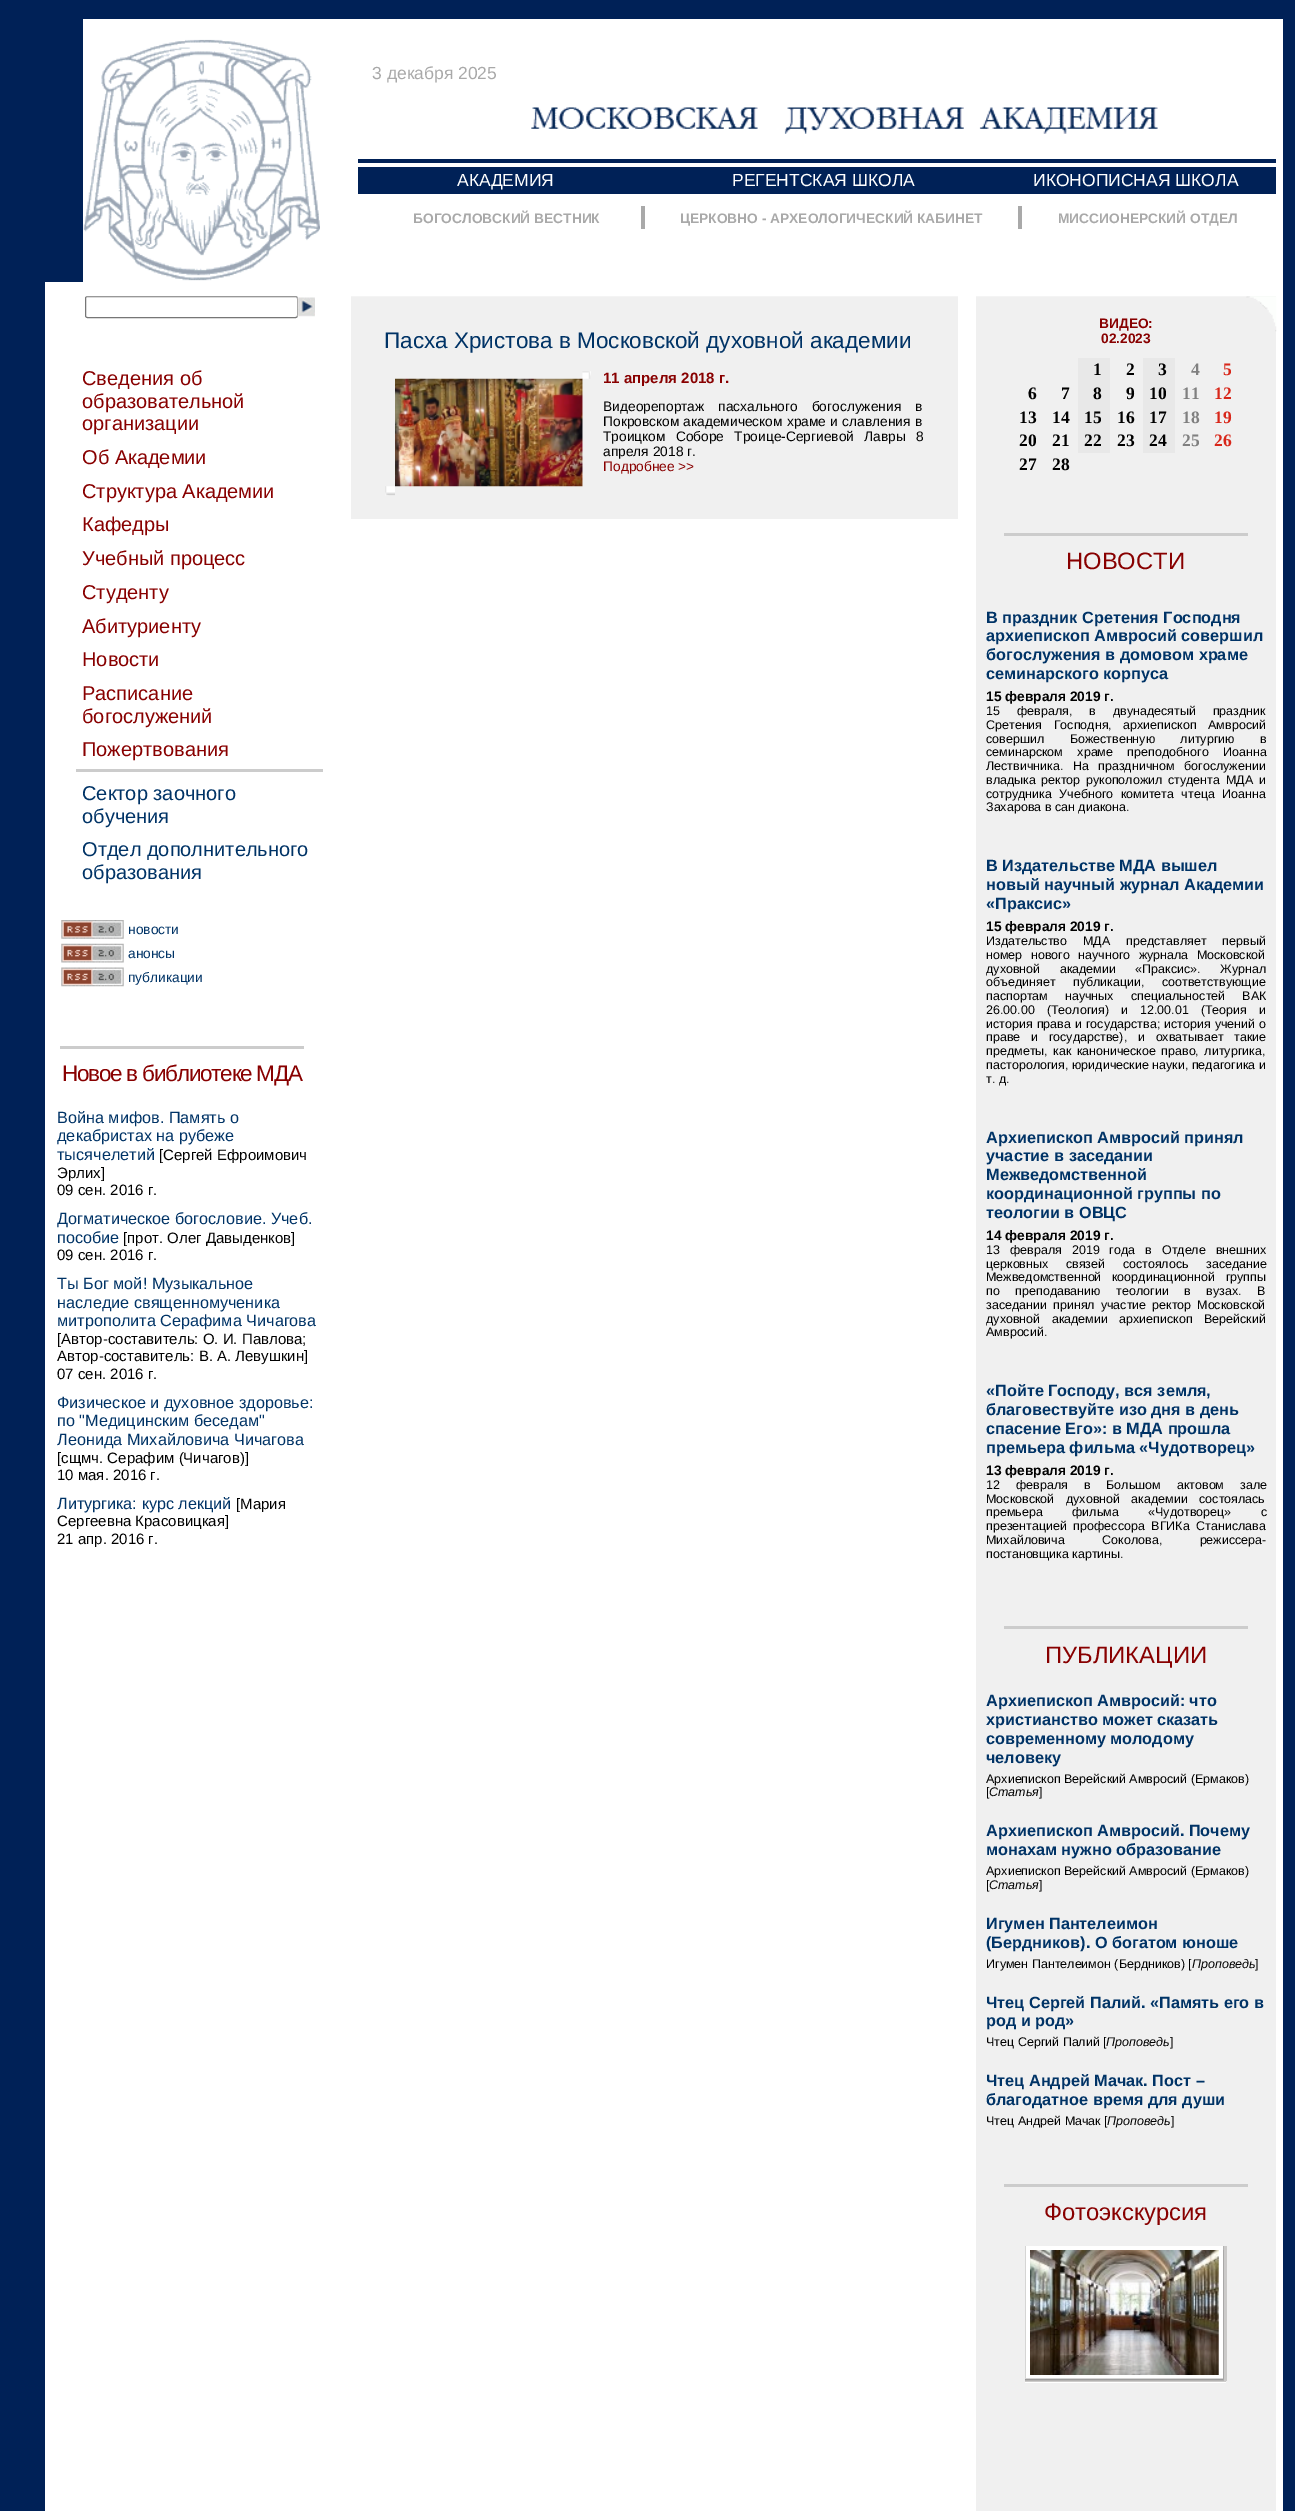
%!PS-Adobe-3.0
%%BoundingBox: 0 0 1295 2511
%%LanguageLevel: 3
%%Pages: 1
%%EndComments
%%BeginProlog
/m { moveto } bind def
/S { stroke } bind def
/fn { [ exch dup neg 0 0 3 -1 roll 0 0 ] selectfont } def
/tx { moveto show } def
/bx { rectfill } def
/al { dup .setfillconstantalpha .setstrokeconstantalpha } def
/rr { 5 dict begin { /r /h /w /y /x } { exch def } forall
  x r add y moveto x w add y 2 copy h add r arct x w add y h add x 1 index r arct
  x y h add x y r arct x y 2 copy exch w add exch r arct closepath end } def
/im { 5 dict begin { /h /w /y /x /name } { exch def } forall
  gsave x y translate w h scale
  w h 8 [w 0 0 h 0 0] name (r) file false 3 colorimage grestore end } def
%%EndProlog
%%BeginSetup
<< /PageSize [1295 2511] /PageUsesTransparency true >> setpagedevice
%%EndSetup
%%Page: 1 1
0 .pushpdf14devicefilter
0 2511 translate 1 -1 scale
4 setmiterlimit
0 0.129 0.341 setrgbcolor
0 0 1295 2511 bx
1 setgray
83 19 1200 263 bx
(image0.raw) 83 39 237 242 im
/LiberationSans-Regular 17.5 fn
0.663 setgray
(3 декабря 2025) 372 79 tx
(image1.raw) 531 107 627 27 im
0 0.129 0.341 setrgbcolor
358 159 918 35 bx
1 setgray
358 163 918 4 bx
(АКАДЕМИЯ) 457 186 tx
(РЕГЕНТСКАЯ ШКОЛА) 732 186 tx
(ИКОНОПИСНАЯ ШКОЛА) 1033 186 tx
/LiberationSans-Bold 13.75 fn
0.663 setgray
(БОГОСЛОВСКИЙ ВЕСТНИК) 413 223 tx
641 206 4 23 bx
(ЦЕРКОВНО - АРХЕОЛОГИЧЕСКИЙ КАБИНЕТ) 680 223 tx
1018 206 4 23 bx
(МИССИОНЕРСКИЙ ОТДЕЛ) 1058 223 tx
1 setgray
45 282 1238 2229 bx
0.463 setgray
85.5 296.5 212 21 2 rr S
0.941 setgray
351 296 607 223 bx
976 296 300 2215 bx
(image9.raw) 1246 296 31 36 im
0.25 al
1 setgray
85 296 1164 1 bx
1 al
(image2.raw) 297 297 18 20 im
/LiberationSans-Regular 20 fn
0.533 0 0 setrgbcolor
(Сведения об) 82 385 tx
(образовательной) 82 408 tx
(организации) 82 430 tx
(Об Академии) 82 464 tx
(Структура Академии) 82 498 tx
(Кафедры) 82 531 tx
(Учебный процесс) 82 565 tx
(Студенту) 82 599 tx
(Абитуриенту) 82 633 tx
(Новости) 82 666 tx
(Расписание) 82 700 tx
(богослужений) 82 723 tx
(Пожертвования) 82 756 tx
0.8 setgray
76 769 247 3 bx
0 0.2 0.4 setrgbcolor
(Сектор заочного) 82 800 tx
(обучения) 82 823 tx
(Отдел дополнительного) 82 856 tx
(образования) 82 879 tx
(image3.raw) 61 920 63 19 im
/LiberationSans-Regular 13.75 fn
(новости) 128 934 tx
(image4.raw) 61 943 63 20 im
(анонсы) 128 958 tx
(image5.raw) 61 967 63 20 im
(публикации) 128 982 tx
0.8 setgray
60 1046 244 3 bx
/LiberationSans-Regular 22.5 fn
0.533 0 0 setrgbcolor
62 1081 m -1.25 0 (Новое в библиотеке МДА) ashow
/LiberationSans-Regular 16.25 fn
0 0.2 0.4 setrgbcolor
(Война мифов. Память о) 57 1123 tx
(декабристах на рубеже) 57 1141 tx
(тысячелетий) 57 1160 tx
/LiberationSans-Regular 15 fn
0 setgray
([Сергей Ефроимович) 159 1160 tx
(Эрлих]) 57 1178 tx
(09 сен. 2016 г.) 57 1195 tx
/LiberationSans-Regular 16.25 fn
0 0.2 0.4 setrgbcolor
(Догматическое богословие. Учеб.) 57 1224 tx
(пособие) 57 1243 tx
/LiberationSans-Regular 15 fn
0 setgray
([прот. Олег Давыденков]) 123 1243 tx
(09 сен. 2016 г.) 57 1260 tx
/LiberationSans-Regular 16.25 fn
0 0.2 0.4 setrgbcolor
(Ты Бог мой! Музыкальное) 57 1289 tx
(наследие священномученика) 57 1308 tx
(митрополита Серафима Чичагова) 57 1326 tx
/LiberationSans-Regular 15 fn
0 setgray
([Автор-составитель: О. И. Павлова;) 57 1344 tx
(Автор-составитель: В. А. Левушкин]) 57 1361 tx
(07 сен. 2016 г.) 57 1379 tx
/LiberationSans-Regular 16.25 fn
0 0.2 0.4 setrgbcolor
(Физическое и духовное здоровье:) 57 1408 tx
(по "Медицинским беседам") 57 1426 tx
(Леонида Михайловича Чичагова) 57 1445 tx
/LiberationSans-Regular 15 fn
0 setgray
([сщмч. Серафим \(Чичагов\)]) 57 1463 tx
(10 мая. 2016 г.) 57 1480 tx
/LiberationSans-Regular 16.25 fn
0 0.2 0.4 setrgbcolor
(Литургика: курс лекций) 57 1509 tx
/LiberationSans-Regular 15 fn
0 setgray
([Мария) 236 1509 tx
(Сергеевна Красовицкая]) 57 1526 tx
(21 апр. 2016 г.) 57 1544 tx
/LiberationSans-Regular 22.5 fn
0 0.2 0.4 setrgbcolor
(Пасха Христова в Московской духовной академии) 384 348 tx
(image6.raw) 582 371 9 8 im
1 setgray
582 379 1 107 bx
(image7.raw) 395 378 188 109 im
(image8.raw) 385 486 10 10 im
/LiberationSans-Bold 15 fn
0.533 0 0 setrgbcolor
(11 апреля 2018 г.) 603 383 tx
/LiberationSans-Regular 13.75 fn
0 setgray
603 411 m 10 0 32 (Видеорепортаж пасхального богослужения в) widthshow
603 426 m 0.5 0 32 (Покровском академическом храме и славления в) widthshow
603 441 m 6.5 0 32 (Троицком Соборе Троице-Сергиевой Лавры 8) widthshow
(апреля 2018 г.) 603 456 tx
0.533 0 0 setrgbcolor
(Подробнее >>) 603 471 tx
/LiberationSans-Bold 13.75 fn
(ВИДЕО:) 1099 328 tx
(02.2023) 1101 343 tx
0.91 setgray
1078 358 32 95 bx
/LiberationSerif-Bold 17.5 fn
0 setgray
(1) 1093 375 tx
(2) 1126 375 tx
0.91 setgray
1143 358 32 95 bx
0 setgray
(3) 1158 375 tx
0.502 setgray
(4) 1191 375 tx
0.847 0.153 0.102 setrgbcolor
(5) 1223 375 tx
0 setgray
(6) 1028 399 tx
(7) 1061 399 tx
(8) 1093 399 tx
(9) 1126 399 tx
(10) 1149 399 tx
0.502 setgray
(11) 1182 399 tx
0.847 0.153 0.102 setrgbcolor
(12) 1214 399 tx
0 setgray
(13) 1019 423 tx
(14) 1052 423 tx
(15) 1084 423 tx
(16) 1117 423 tx
(17) 1149 423 tx
0.502 setgray
(18) 1182 423 tx
0.847 0.153 0.102 setrgbcolor
(19) 1214 423 tx
0 setgray
(20) 1019 446 tx
(21) 1052 446 tx
(22) 1084 446 tx
(23) 1117 446 tx
(24) 1149 446 tx
0.502 setgray
(25) 1182 446 tx
0.847 0.153 0.102 setrgbcolor
(26) 1214 446 tx
0 setgray
(27) 1019 470 tx
(28) 1052 470 tx
0.8 setgray
1004 533 244 3 bx
/LiberationSans-Regular 23.75 fn
0.533 0 0 setrgbcolor
(НОВОСТИ) 1066 569 tx
/LiberationSans-Bold 16.25 fn
0 0.2 0.4 setrgbcolor
(В праздник Сретения Господня) 986 623 tx
(архиепископ Амвросий совершил) 986 641 tx
(богослужения в домовом храме) 986 660 tx
(семинарского корпуса) 986 679 tx
/LiberationSans-Bold 13.75 fn
0 setgray
(15 февраля 2019 г.) 986 701 tx
/LiberationSans-Regular 12.5 fn
986 715 m 13.5 0 32 (15 февраля, в двунадесятый праздник) widthshow
986 729 m 8 0 32 (Сретения Господня, архиепископ Амвросий) widthshow
986 743 m 22 0 32 (совершил Божественную литургию в) widthshow
986 756 m 11 0 32 (семинарском храме преподобного Иоанна) widthshow
986 770 m 6 0 32 (Лествичника. На праздничном богослужении) widthshow
986 784 m 2.25 0 32 (владыка ректор рукоположил студента МДА и) widthshow
986 798 m 4 0 32 (сотрудника Учебного комитета чтеца Иоанна) widthshow
(Захарова в сан диакона.) 986 811 tx
/LiberationSans-Bold 16.25 fn
0 0.2 0.4 setrgbcolor
(В Издательстве МДА вышел) 986 871 tx
(новый научный журнал Академии) 986 890 tx
(«Праксис») 986 909 tx
/LiberationSans-Bold 13.75 fn
0 setgray
(15 февраля 2019 г.) 986 931 tx
/LiberationSans-Regular 12.5 fn
986 945 m 12.5 0 32 (Издательство МДА представляет первый) widthshow
986 959 m 5 0 32 (номер нового научного журнала Московской) widthshow
986 973 m 16 0 32 (духовной академии «Праксис». Журнал) widthshow
986 986 m 14 0 32 (объединяет публикации, соответствующие) widthshow
986 1000 m 13.5 0 32 (паспортам научных специальностей ВАК) widthshow
986 1014 m 8.5 0 32 (26.00.00 \(Теология\) и 12.00.01 \(Теория и) widthshow
986 1028 m 0.5 0 32 (история права и государства; история учений о) widthshow
986 1041 m 7.25 0 32 (праве и государстве\), и охватывает такие) widthshow
986 1055 m 2 0 32 (предметы, как каноническое право, литургика,) widthshow
(пасторология, юридические науки, педагогика и) 986 1069 tx
(т. д.) 986 1083 tx
/LiberationSans-Bold 16.25 fn
0 0.2 0.4 setrgbcolor
(Архиепископ Амвросий принял) 986 1143 tx
(участие в заседании) 986 1161 tx
(Межведомственной) 986 1180 tx
(координационной группы по) 986 1199 tx
(теологии в ОВЦС) 986 1218 tx
/LiberationSans-Bold 13.75 fn
0 setgray
(14 февраля 2019 г.) 986 1240 tx
/LiberationSans-Regular 12.5 fn
986 1254 m 6.5 0 32 (13 февраля 2019 года в Отделе внешних) widthshow
986 1268 m 14 0 32 (церковных связей состоялось заседание) widthshow
986 1281 m 7 0 32 (Межведомственной координационной группы) widthshow
986 1295 m 12 0 32 (по преподаванию теологии в вузах. В) widthshow
986 1309 m 2.5 0 32 (заседании принял участие ректор Московской) widthshow
986 1323 m 8 0 32 (духовной академии архиепископ Верейский) widthshow
(Амвросий.) 986 1336 tx
/LiberationSans-Bold 16.25 fn
0 0.2 0.4 setrgbcolor
(«Пойте Господу, вся земля,) 986 1396 tx
(благовествуйте изо дня в день) 986 1415 tx
(спасение Его»: в МДА прошла) 986 1434 tx
(премьера фильма «Чудотворец») 986 1453 tx
/LiberationSans-Bold 13.75 fn
0 setgray
(13 февраля 2019 г.) 986 1475 tx
/LiberationSans-Regular 12.5 fn
986 1489 m 12.5 0 32 (12 февраля в Большом актовом зале) widthshow
986 1503 m 8 0 32 (Московской духовной академии состоялась) widthshow
986 1516 m 26 0 32 (премьера фильма «Чудотворец» с) widthshow
986 1530 m 3 0 32 (презентацией профессора ВГИКа Станислава) widthshow
986 1544 m 34 0 32 (Михайловича Соколова, режиссера-) widthshow
(постановщика картины.) 986 1558 tx
0.8 setgray
1004 1626 244 3 bx
/LiberationSans-Regular 23.75 fn
0.533 0 0 setrgbcolor
(ПУБЛИКАЦИИ) 1045 1663 tx
/LiberationSans-Bold 16.25 fn
0 0.2 0.4 setrgbcolor
(Архиепископ Амвросий: что) 986 1706 tx
(христианство может сказать) 986 1725 tx
(современному молодому) 986 1744 tx
(человеку) 986 1763 tx
/LiberationSans-Regular 12.5 fn
0 setgray
(Архиепископ Верейский Амвросий \(Ермаков\)) 986 1783 tx
([) 986 1796 tx
/LiberationSans-Italic 12.5 fn
(Статья) 989 1796 tx
/LiberationSans-Regular 12.5 fn
(]) 1039 1796 tx
/LiberationSans-Bold 16.25 fn
0 0.2 0.4 setrgbcolor
(Архиепископ Амвросий. Почему) 986 1836 tx
(монахам нужно образование) 986 1855 tx
/LiberationSans-Regular 12.5 fn
0 setgray
(Архиепископ Верейский Амвросий \(Ермаков\)) 986 1875 tx
([) 986 1889 tx
/LiberationSans-Italic 12.5 fn
(Статья) 989 1889 tx
/LiberationSans-Regular 12.5 fn
(]) 1039 1889 tx
/LiberationSans-Bold 16.25 fn
0 0.2 0.4 setrgbcolor
(Игумен Пантелеимон) 986 1929 tx
(\(Бердников\). О богатом юноше) 986 1948 tx
/LiberationSans-Regular 12.5 fn
0 setgray
(Игумен Пантелеимон \(Бердников\) [) 986 1968 tx
/LiberationSans-Italic 12.5 fn
(Проповедь) 1192 1968 tx
/LiberationSans-Regular 12.5 fn
(]) 1255 1968 tx
/LiberationSans-Bold 16.25 fn
0 0.2 0.4 setrgbcolor
(Чтец Сергей Палий. «Память его в) 986 2008 tx
(род и род») 986 2026 tx
/LiberationSans-Regular 12.5 fn
0 setgray
(Чтец Сергий Палий [) 986 2046 tx
/LiberationSans-Italic 12.5 fn
(Проповедь) 1106 2046 tx
/LiberationSans-Regular 12.5 fn
(]) 1170 2046 tx
/LiberationSans-Bold 16.25 fn
0 0.2 0.4 setrgbcolor
(Чтец Андрей Мачак. Пост –) 986 2086 tx
(благодатное время для души) 986 2105 tx
/LiberationSans-Regular 12.5 fn
0 setgray
(Чтец Андрей Мачак [) 986 2125 tx
/LiberationSans-Italic 12.5 fn
(Проповедь) 1107 2125 tx
/LiberationSans-Regular 12.5 fn
(]) 1171 2125 tx
0.8 setgray
1004 2184 244 3 bx
/LiberationSans-Regular 23.75 fn
0.533 0 0 setrgbcolor
(Фотоэкскурсия) 1044 2220 tx
1 setgray
1025 2246 201 137 bx
0.835 0.835 0.831 setrgbcolor
1025 2246 1 133 bx
0.706 setgray
1223 2246 1 4 bx
0.796 0.792 0.788 setrgbcolor
1224 2246 3 135 bx
(image10.raw) 1030 2250 189 125 im
0.663 0.659 0.659 setrgbcolor
1223 2250 1 130 bx
0.835 0.835 0.831 setrgbcolor
1026 2378 197 1 bx
0.612 0.608 0.608 setrgbcolor
1025 2379 198 1 bx
0.702 0.698 0.694 setrgbcolor
1025 2380 199 1 bx
0.804 0.8 0.796 setrgbcolor
1025 2381 201 1 bx
.poppdf14devicefilter showpage
%%EOF
